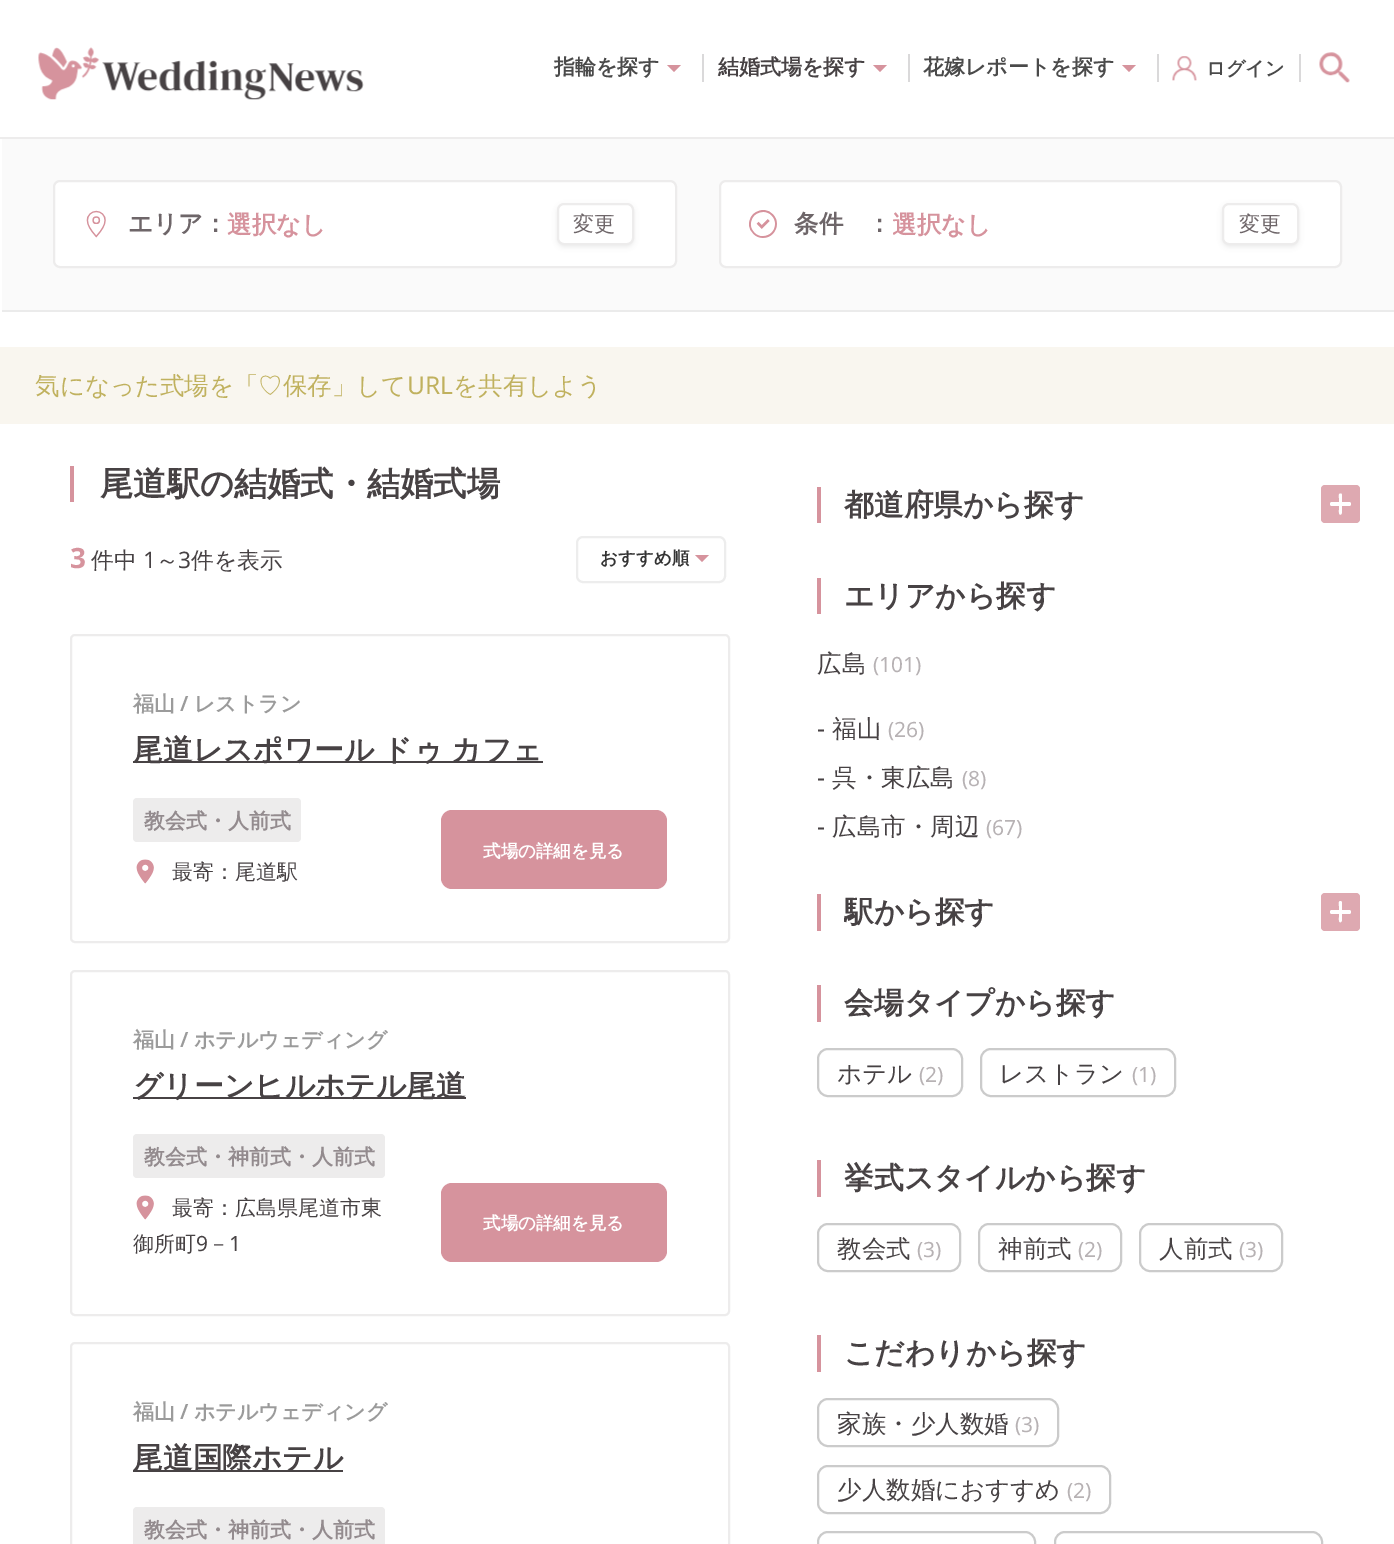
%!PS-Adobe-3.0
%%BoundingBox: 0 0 1394 1544
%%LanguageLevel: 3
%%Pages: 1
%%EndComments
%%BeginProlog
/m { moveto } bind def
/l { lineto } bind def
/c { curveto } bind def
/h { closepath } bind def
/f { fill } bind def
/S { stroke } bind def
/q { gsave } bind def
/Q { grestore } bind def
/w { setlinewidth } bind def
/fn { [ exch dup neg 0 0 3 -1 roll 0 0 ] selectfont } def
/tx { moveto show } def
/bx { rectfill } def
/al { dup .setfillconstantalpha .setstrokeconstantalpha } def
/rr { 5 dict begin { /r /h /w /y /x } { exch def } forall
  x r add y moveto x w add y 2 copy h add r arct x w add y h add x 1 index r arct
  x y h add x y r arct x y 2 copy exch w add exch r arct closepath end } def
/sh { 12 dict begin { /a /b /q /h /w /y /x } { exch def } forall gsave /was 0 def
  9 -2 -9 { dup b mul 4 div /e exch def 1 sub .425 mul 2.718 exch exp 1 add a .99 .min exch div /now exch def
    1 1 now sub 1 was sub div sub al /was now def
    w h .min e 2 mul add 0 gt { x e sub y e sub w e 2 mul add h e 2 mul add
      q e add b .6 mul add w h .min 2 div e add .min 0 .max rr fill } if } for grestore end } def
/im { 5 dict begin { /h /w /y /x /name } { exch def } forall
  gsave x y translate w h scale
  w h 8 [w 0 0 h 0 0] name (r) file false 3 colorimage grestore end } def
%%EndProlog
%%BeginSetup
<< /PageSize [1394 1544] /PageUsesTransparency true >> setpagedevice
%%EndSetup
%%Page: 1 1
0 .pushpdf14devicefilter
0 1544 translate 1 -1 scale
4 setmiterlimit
1 setgray
0 0 1394 1544 bx
0.929 0.925 0.925 setrgbcolor
0 137 1394 2 bx
(image0.raw) 38 47 326 53 im
/WenQuanYiZenHei-Bold 21 fn
0.29 setgray
(指輪を探す) 554 74 tx
0.839 0.576 0.616 setrgbcolor
667 65 m 681 65 l 674 72 l h f
0.855 0.851 0.855 setrgbcolor
702 54 2 28 bx
0.278 0.259 0.267 setrgbcolor
(結婚式場を探す) 718 74 tx
0.839 0.576 0.616 setrgbcolor
873 65 m 887 65 l 880 72 l h f
0.855 0.851 0.855 setrgbcolor
908 54 2 28 bx
0.29 setgray
(花嫁レポートを探す) 923 74 tx
0.839 0.576 0.616 setrgbcolor
1122 65 m 1136 65 l 1129 72 l h f
0.855 0.851 0.855 setrgbcolor
1157 54 2 28 bx
(image1.raw) 1172 56 25 25 im
/WenQuanYiZenHei-Bold 19.25 fn
0.29 setgray
(ログイン) 1206 75 tx
0.855 0.851 0.855 setrgbcolor
1299 54 2 28 bx
(image2.raw) 1319 52 31 31 im
0.98 setgray
2 139 1392 171 bx
0.922 setgray
2 310 1392 2 bx
1 setgray
54 181 622 86 6 rr q f Q
0.929 0.925 0.925 setrgbcolor
2 w
S
(image3.raw) 86 210 20 28 im
/WenQuanYiZenHei-Bold 24.5 fn
0.431 0.4 0.412 setrgbcolor
(エリア：) 128 232 tx
0.839 0.576 0.616 setrgbcolor
(選択なし) 227 233 tx
0 setgray
557 205 77 42 7 2.5 0.07 sh
1 setgray
558 204 75 40 6 rr q f Q
0.929 0.925 0.925 setrgbcolor
S
/WenQuanYiZenHei-Medium 21 fn
0.431 0.4 0.412 setrgbcolor
(変更) 573 231 tx
1 setgray
720 181 621 86 6 rr q f Q
0.929 0.925 0.925 setrgbcolor
S
(image4.raw) 749 210 28 28 im
/WenQuanYiZenHei-Bold 24.5 fn
0.431 0.4 0.412 setrgbcolor
(条件) 794 232 tx
(：) 867 232 tx
q
893 208 329 32 rectclip
0.839 0.576 0.616 setrgbcolor
(選択なし) 892 233 tx
Q
0 setgray
1222 205 77 42 7 2.5 0.07 sh
1 setgray
1223 204 75 40 6 rr q f Q
0.929 0.925 0.925 setrgbcolor
S
/WenQuanYiZenHei-Medium 21 fn
0.431 0.4 0.412 setrgbcolor
(変更) 1239 231 tx
0.976 0.965 0.937 setrgbcolor
0 347 1394 77 bx
/WenQuanYiZenHei-Medium 24.5 fn
0.753 0.694 0.369 setrgbcolor
(気になった式場を「♡保存」して) 35 394 tx
/NotoSans-Regular 24.5 fn
(URL) 407 394 tx
/WenQuanYiZenHei-Medium 24.5 fn
(を共有しよう) 453 394 tx
0.839 0.576 0.616 setrgbcolor
70 466 4 36 bx
/WenQuanYiZenHei-Bold 33.25 fn
0.278 0.259 0.267 setrgbcolor
(尾道駅の結婚式・結婚式場) 100 495 tx
/NotoSans-Bold 28 fn
0.839 0.576 0.616 setrgbcolor
(3) 70 568 tx
/WenQuanYiZenHei-Medium 22.75 fn
0.278 0.259 0.267 setrgbcolor
(件中) 91 568 tx
/NotoSans-Regular 22.75 fn
(1) 143 568 tx
/WenQuanYiZenHei-Medium 22.75 fn
(～) 156 568 tx
/NotoSans-Regular 22.75 fn
(3) 178 568 tx
/WenQuanYiZenHei-Medium 22.75 fn
(件を表示) 191 568 tx
0.929 setgray
577 537 148 45 6 rr S
/WenQuanYiZenHei-Bold 17.5 fn
0.2 setgray
(おすすめ順) 600 564 tx
0.839 0.576 0.616 setrgbcolor
695 555 m 709 555 l 702 562 l h f
0.929 0.925 0.925 setrgbcolor
71 635 658 307 4 rr S
/WenQuanYiZenHei-Bold 21 fn
0.608 setgray
(福山) 133 711 tx
/NotoSans-SemiBold 21 fn
(/) 180 711 tx
/WenQuanYiZenHei-Bold 21 fn
(レストラン) 194 711 tx
0.278 0.259 0.267 setrgbcolor
133 761 410 2 bx
/WenQuanYiZenHei-Bold 29.75 fn
133 760 m -1 0 32 (尾道レスポワール ドゥ カフェ) widthshow
0.929 0.925 0.925 setrgbcolor
133 798 168 44 4 rr f
/WenQuanYiZenHei-Bold 21 fn
0.576 0.545 0.557 setrgbcolor
(教会式・人前式) 144 828 tx
(image5.raw) 136 859 18 25 im
/WenQuanYiZenHei-Medium 21 fn
0.278 0.259 0.267 setrgbcolor
(最寄：尾道駅) 172 879 tx
0.839 0.576 0.616 setrgbcolor
441 810 226 79 11 rr f
/WenQuanYiZenHei-Bold 17.5 fn
1 setgray
(式場の詳細を見る) 483 857 tx
0.929 0.925 0.925 setrgbcolor
71 971 658 344 4 rr S
/WenQuanYiZenHei-Bold 21 fn
0.608 setgray
(福山) 133 1047 tx
/NotoSans-SemiBold 21 fn
(/) 180 1047 tx
/WenQuanYiZenHei-Bold 21 fn
(ホテルウェディング) 194 1047 tx
0.278 0.259 0.267 setrgbcolor
133 1097 333 2 bx
/WenQuanYiZenHei-Bold 29.75 fn
(グリーンヒルホテル尾道) 133 1096 tx
0.929 0.925 0.925 setrgbcolor
133 1134 252 44 4 rr f
/WenQuanYiZenHei-Bold 21 fn
0.576 0.545 0.557 setrgbcolor
(教会式・神前式・人前式) 144 1164 tx
(image5.raw) 136 1195 18 25 im
/WenQuanYiZenHei-Medium 21 fn
0.278 0.259 0.267 setrgbcolor
(最寄：広島県尾道市東) 172 1215 tx
(御所町) 133 1251 tx
/NotoSans-Regular 21 fn
(9) 196 1251 tx
/WenQuanYiZenHei-Medium 21 fn
(－) 208 1251 tx
/NotoSans-Regular 21 fn
(1) 229 1251 tx
0.839 0.576 0.616 setrgbcolor
441 1183 226 79 11 rr f
/WenQuanYiZenHei-Bold 17.5 fn
1 setgray
(式場の詳細を見る) 483 1229 tx
0.929 0.925 0.925 setrgbcolor
71 1343 658 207 4 rr S
/WenQuanYiZenHei-Bold 21 fn
0.608 setgray
(福山) 133 1419 tx
/NotoSans-SemiBold 21 fn
(/) 180 1419 tx
/WenQuanYiZenHei-Bold 21 fn
(ホテルウェディング) 194 1419 tx
0.278 0.259 0.267 setrgbcolor
133 1470 210 2 bx
/WenQuanYiZenHei-Bold 29.75 fn
(尾道国際ホテル) 133 1468 tx
0.929 0.925 0.925 setrgbcolor
133 1507 252 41 4 rr f
/WenQuanYiZenHei-Bold 21 fn
0.576 0.545 0.557 setrgbcolor
(教会式・神前式・人前式) 144 1537 tx
0.839 0.576 0.616 setrgbcolor
817 487 4 36 bx
/WenQuanYiZenHei-Bold 29.75 fn
0.278 0.259 0.267 setrgbcolor
(都道府県から探す) 844 515 tx
0.871 0.663 0.694 setrgbcolor
1321 485 39 38 4 rr f
1 setgray
1330 502 21 4 2 rr f
1342 495 m 1342 513 l 1341 514.5 l 1338.5 515.5 1339 511 1339 510 c 1339 498 l 1339 497 1338 493.5 1340.5 493.5 c 1341.5 493.5 1342 494.5 1342 495 c h f
0.839 0.576 0.616 setrgbcolor
817 578 4 36 bx
0.278 0.259 0.267 setrgbcolor
(エリアから探す) 844 606 tx
/WenQuanYiZenHei-Medium 24.5 fn
(広島) 817 672 tx
/NotoSans-Regular 21 fn
0.718 0.698 0.706 setrgbcolor
(\(101\)) 873 672 tx
/NotoSans-Regular 24.5 fn
0.278 0.259 0.267 setrgbcolor
(-) 817 737 tx
/WenQuanYiZenHei-Medium 24.5 fn
(福山) 832 737 tx
/NotoSans-Regular 21 fn
0.718 0.698 0.706 setrgbcolor
(\(26\)) 888 737 tx
/NotoSans-Regular 24.5 fn
0.278 0.259 0.267 setrgbcolor
(-) 817 786 tx
/WenQuanYiZenHei-Medium 24.5 fn
(呉・東広島) 832 786 tx
/NotoSans-Regular 21 fn
0.718 0.698 0.706 setrgbcolor
(\(8\)) 962 786 tx
/NotoSans-Regular 24.5 fn
0.278 0.259 0.267 setrgbcolor
(-) 817 835 tx
/WenQuanYiZenHei-Medium 24.5 fn
(広島市・周辺) 832 835 tx
/NotoSans-Regular 21 fn
0.718 0.698 0.706 setrgbcolor
(\(67\)) 986 835 tx
0.839 0.576 0.616 setrgbcolor
817 894 4 37 bx
q
844 887 150 49 rectclip
/WenQuanYiZenHei-Bold 29.75 fn
0.278 0.259 0.267 setrgbcolor
(駅から探す) 844 922 tx
Q
0.871 0.663 0.694 setrgbcolor
1321 893 39 38 4 rr f
1 setgray
1330 910 21 4 2 rr f
1342 903 m 1342 921 l 1341 922 l 1338.5 923.5 1339 918.5 1339 917.5 c 1339 906 l 1339 904.5 1338 901 1340.5 901 c 1341.5 901 1342 902 1342 903 c h f
0.839 0.576 0.616 setrgbcolor
817 985 4 37 bx
/WenQuanYiZenHei-Bold 29.75 fn
0.278 0.259 0.267 setrgbcolor
(会場タイプから探す) 844 1013 tx
0.796 setgray
818 1049 144 47 10 rr S
/WenQuanYiZenHei-Medium 24.5 fn
0.278 0.259 0.267 setrgbcolor
(ホテル) 837 1082 tx
/NotoSans-Regular 21 fn
0.718 0.698 0.706 setrgbcolor
(\(2\)) 919 1082 tx
0.796 setgray
981 1049 194 47 10 rr S
/WenQuanYiZenHei-Medium 24.5 fn
0.278 0.259 0.267 setrgbcolor
(レストラン) 999 1082 tx
/NotoSans-Regular 21 fn
0.718 0.698 0.706 setrgbcolor
(\(1\)) 1132 1082 tx
0.839 0.576 0.616 setrgbcolor
817 1160 4 37 bx
/WenQuanYiZenHei-Bold 29.75 fn
0.278 0.259 0.267 setrgbcolor
(挙式スタイルから探す) 844 1188 tx
0.796 setgray
818 1224 142 47 10 rr S
/WenQuanYiZenHei-Medium 24.5 fn
0.278 0.259 0.267 setrgbcolor
(教会式) 837 1257 tx
/NotoSans-Regular 21 fn
0.718 0.698 0.706 setrgbcolor
(\(3\)) 917 1257 tx
0.796 setgray
979 1224 142 47 10 rr S
/WenQuanYiZenHei-Medium 24.5 fn
0.278 0.259 0.267 setrgbcolor
(神前式) 998 1257 tx
/NotoSans-Regular 21 fn
0.718 0.698 0.706 setrgbcolor
(\(2\)) 1078 1257 tx
0.796 setgray
1140 1224 142 47 10 rr S
/WenQuanYiZenHei-Medium 24.5 fn
0.278 0.259 0.267 setrgbcolor
(人前式) 1159 1257 tx
/NotoSans-Regular 21 fn
0.718 0.698 0.706 setrgbcolor
(\(3\)) 1239 1257 tx
0.839 0.576 0.616 setrgbcolor
817 1335 4 37 bx
/WenQuanYiZenHei-Bold 29.75 fn
0.278 0.259 0.267 setrgbcolor
(こだわりから探す) 844 1363 tx
0.796 setgray
818 1399 240 47 10 rr S
/WenQuanYiZenHei-Medium 24.5 fn
0.278 0.259 0.267 setrgbcolor
(家族・少人数婚) 837 1432 tx
/NotoSans-Regular 21 fn
0.718 0.698 0.706 setrgbcolor
(\(3\)) 1015 1432 tx
0.796 setgray
818 1466 292 47 10 rr S
/WenQuanYiZenHei-Medium 24.5 fn
0.278 0.259 0.267 setrgbcolor
(少人数婚におすすめ) 837 1498 tx
/NotoSans-Regular 21 fn
0.718 0.698 0.706 setrgbcolor
(\(2\)) 1067 1498 tx
0.796 setgray
818 1532 217 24 10 rr S
1055 1532 267 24 10 rr S
.poppdf14devicefilter showpage
%%EOF
